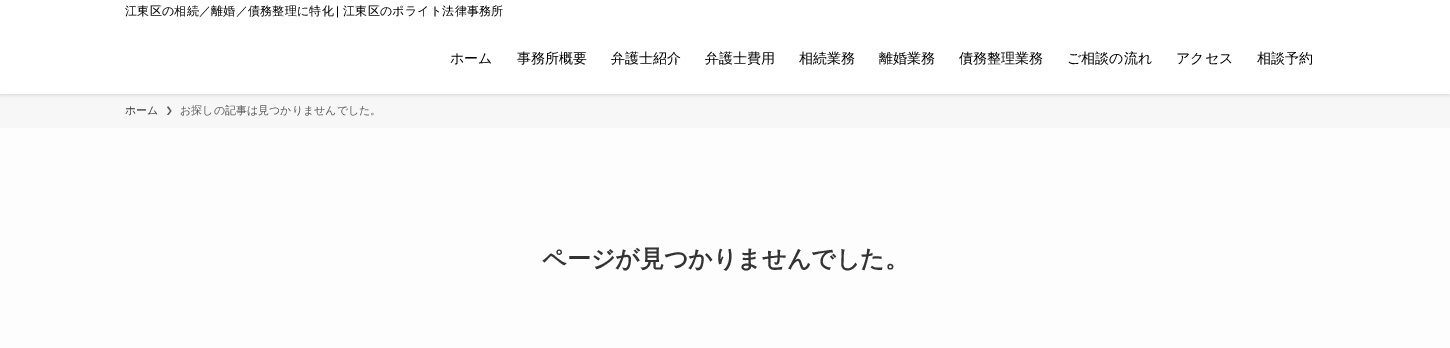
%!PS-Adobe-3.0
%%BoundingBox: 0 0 1450 348
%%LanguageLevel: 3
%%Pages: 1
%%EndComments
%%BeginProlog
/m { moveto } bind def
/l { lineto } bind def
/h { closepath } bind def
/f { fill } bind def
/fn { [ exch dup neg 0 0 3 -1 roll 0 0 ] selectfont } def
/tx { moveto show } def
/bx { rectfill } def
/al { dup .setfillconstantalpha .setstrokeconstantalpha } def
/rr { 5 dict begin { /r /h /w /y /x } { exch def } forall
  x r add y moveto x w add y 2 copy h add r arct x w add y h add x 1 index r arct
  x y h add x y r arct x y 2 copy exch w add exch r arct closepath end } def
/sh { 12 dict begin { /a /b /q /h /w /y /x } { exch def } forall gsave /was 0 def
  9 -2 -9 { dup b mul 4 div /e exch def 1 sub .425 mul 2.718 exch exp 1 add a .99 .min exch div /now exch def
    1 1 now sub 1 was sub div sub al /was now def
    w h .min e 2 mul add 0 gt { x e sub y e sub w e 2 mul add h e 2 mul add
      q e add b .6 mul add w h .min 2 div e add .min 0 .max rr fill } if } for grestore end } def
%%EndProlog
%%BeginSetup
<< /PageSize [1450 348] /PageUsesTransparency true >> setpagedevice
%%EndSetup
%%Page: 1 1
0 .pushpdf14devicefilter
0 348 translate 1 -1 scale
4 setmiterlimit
0.992 setgray
0 0 1450 348 bx
0.969 setgray
0 94 1450 34 bx
0 setgray
0 1 1450 94 0 2 0.12 sh
1 setgray
0 0 1450 94 bx
/WenQuanYiZenHei-Medium 12 fn
0 setgray
125 15 m 0.25 0 (江東区の相続／離婚／債務整理に特化) ashow
/LiberationSans-Regular 12 fn
336 15 m 0.25 0 (|) ashow
/WenQuanYiZenHei-Medium 12 fn
343 15 m 0.25 0 (江東区のポライト法律事務所) ashow
/WenQuanYiZenHei-Medium 14 fn
(ホーム) 450 63 tx
(事務所概要) 517 63 tx
(弁護士紹介) 611 63 tx
(弁護士費用) 705 63 tx
(相続業務) 799 63 tx
(離婚業務) 879 63 tx
(債務整理業務) 959 63 tx
(ご相談の流れ) 1067 63 tx
(アクセス) 1176 63 tx
(相談予約) 1257 63 tx
/WenQuanYiZenHei-Medium 11 fn
0.2 setgray
(ホーム) 125 114 tx
0.353 setgray
168.5 106.5 m 167 107 l 170 111 l 167 115 l 168.5 115 l 171.5 111 l h f
(お探しの記事は見つかりませんでした。) 180 114 tx
/WenQuanYiZenHei-Bold 24 fn
0.2 setgray
(ページが見つかりませんでした。) 542 267 tx
.poppdf14devicefilter showpage
%%EOF
